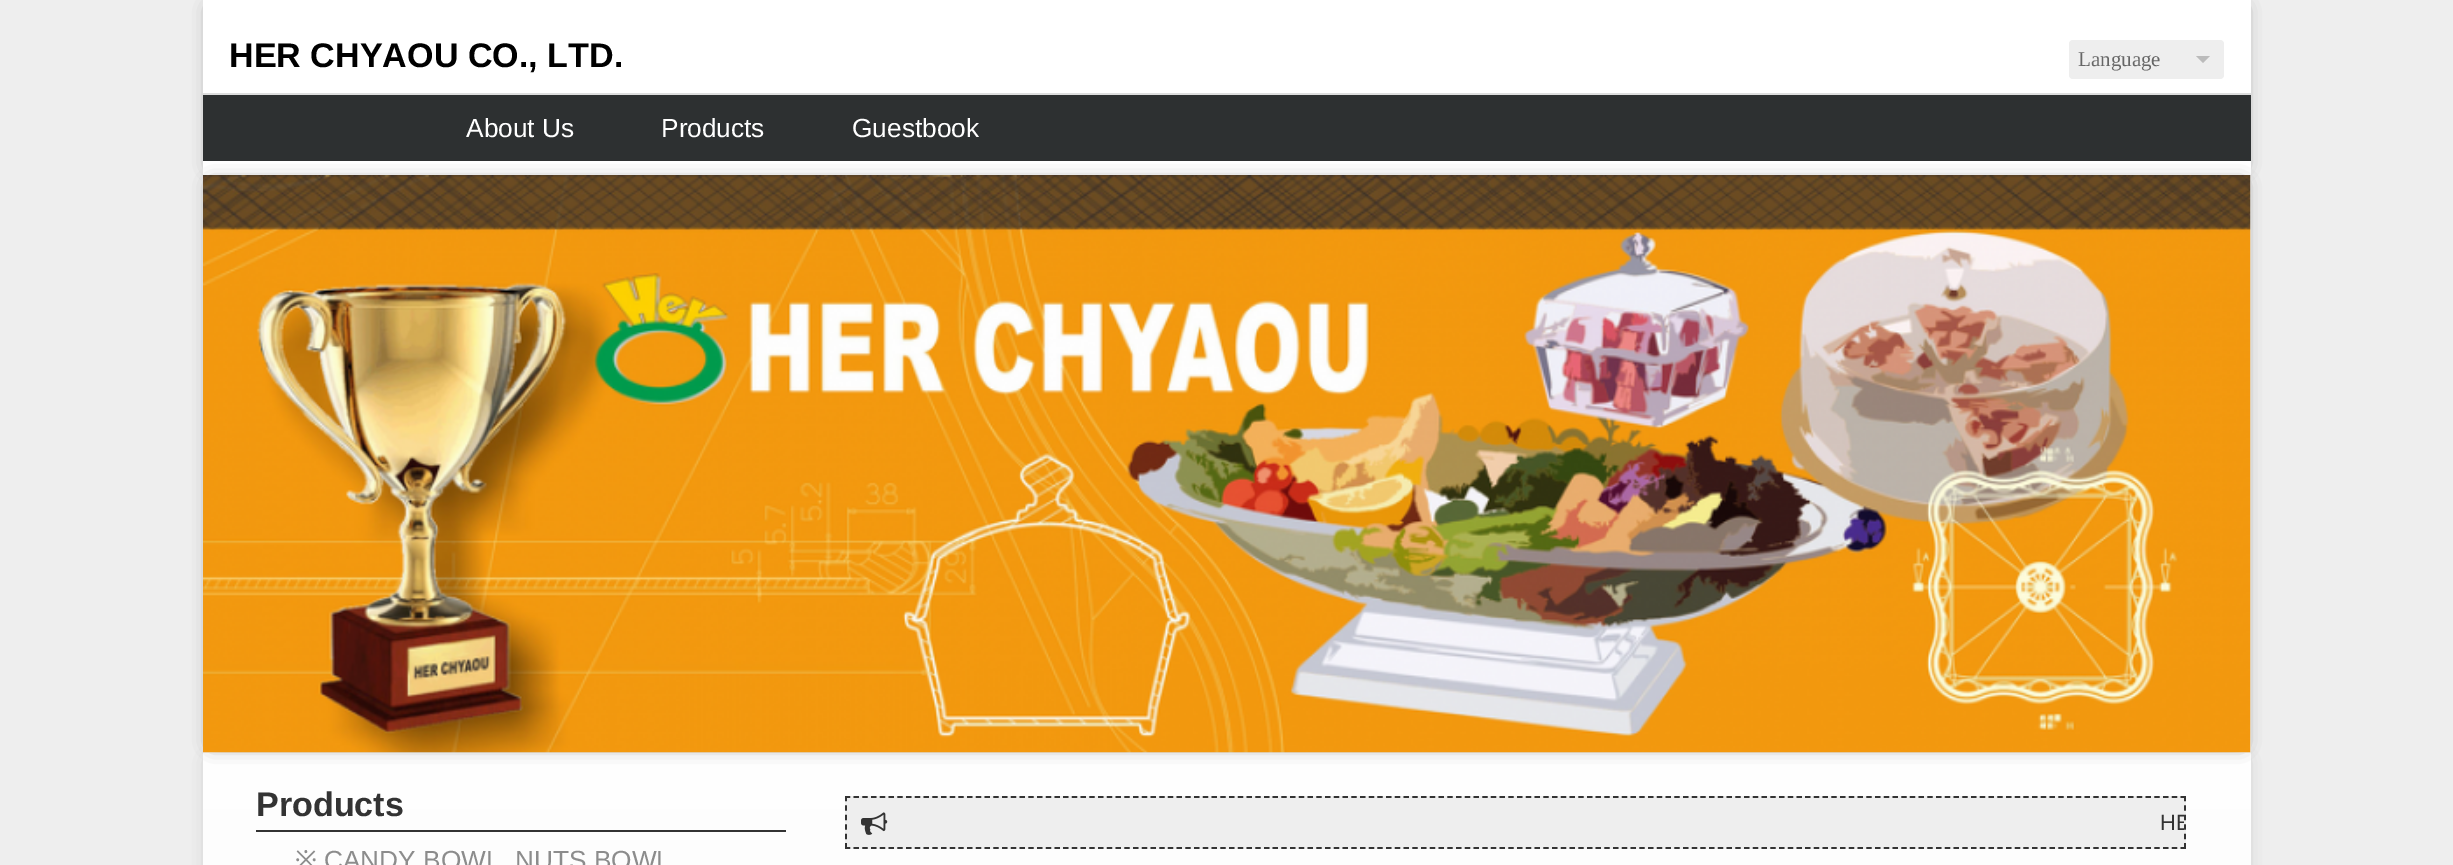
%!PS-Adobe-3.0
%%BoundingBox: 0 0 2453 865
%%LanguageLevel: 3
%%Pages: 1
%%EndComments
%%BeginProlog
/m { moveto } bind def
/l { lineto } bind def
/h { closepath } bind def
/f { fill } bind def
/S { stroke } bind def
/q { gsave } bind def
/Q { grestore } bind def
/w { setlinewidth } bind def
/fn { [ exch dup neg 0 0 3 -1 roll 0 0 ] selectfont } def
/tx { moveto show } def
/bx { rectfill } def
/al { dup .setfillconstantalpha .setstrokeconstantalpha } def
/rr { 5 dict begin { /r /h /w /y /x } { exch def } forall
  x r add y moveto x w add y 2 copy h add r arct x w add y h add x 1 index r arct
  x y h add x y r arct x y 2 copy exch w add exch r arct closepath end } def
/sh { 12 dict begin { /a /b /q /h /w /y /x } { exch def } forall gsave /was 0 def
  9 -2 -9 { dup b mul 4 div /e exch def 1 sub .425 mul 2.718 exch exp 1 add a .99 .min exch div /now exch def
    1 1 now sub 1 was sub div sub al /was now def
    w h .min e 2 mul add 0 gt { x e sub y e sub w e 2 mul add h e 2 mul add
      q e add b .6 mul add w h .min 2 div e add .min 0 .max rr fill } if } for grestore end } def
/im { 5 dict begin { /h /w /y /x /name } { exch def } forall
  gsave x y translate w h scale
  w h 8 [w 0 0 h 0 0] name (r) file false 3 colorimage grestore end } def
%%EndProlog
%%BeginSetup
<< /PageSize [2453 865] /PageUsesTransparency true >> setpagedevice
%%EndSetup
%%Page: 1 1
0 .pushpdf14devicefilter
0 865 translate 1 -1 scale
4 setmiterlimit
0.933 setgray
0 0 2453 865 bx
0.4 setgray
212 9 2030 157 0 9 1 sh
1 setgray
203 0 2048 175 bx
/LiberationSans-Bold 34.1 fn
0 setgray
(HER CHYAOU CO., LTD.) 229 67 tx
0.933 setgray
2069 40 155 39 4 rr f
/LiberationSerif-Regular 21 fn
0.4 setgray
(Language) 2078 66 tx
0.733 setgray
2196 56 m 2210 56 l 2203 63 l h f
0.176 0.188 0.192 setrgbcolor
203 95 2048 66 bx
0.867 setgray
203 93 2048 2 bx
/LiberationSans-Regular 26.25 fn
1 setgray
(About Us) 466 137 tx
(Products) 661 137 tx
(Guestbook) 852 137 tx
0.6 setgray
212 761 2030 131 0 9 1 sh
q 203 753 m 2251 753 l 2251 865 l 203 865 l h clip newpath
<< /ShadingType 2 /ColorSpace /DeviceRGB /Coords [1227 752 1227 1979] /Extend [true true] /Function << /FunctionType 3 /Domain [0 1] /Functions [<< /FunctionType 2 /Domain [0 1] /C0 [1 1 1] /C1 [0.965 0.965 0.965] /N 1 >> << /FunctionType 2 /Domain [0 1] /C0 [0.965 0.965 0.965] /C1 [0.929 0.929 0.929] /N 1 >>] /Bounds [0.47] /Encode [0 1 0 1] >> >> shfill Q
0.4 setgray
212 184 2030 560 0 9 1 sh
(image0.raw) 203 175 2048 578 im
0.2 setgray
256 830 530 2 bx
/LiberationSans-Bold 34.1 fn
(Products) 256 816 tx
/NotoSans-Regular 26.25 fn
0.549 setgray
(※) 295 869 tx
/LiberationSans-Regular 26.25 fn
(CANDY BOWL, NUTS BOWL) 324 869 tx
0.933 setgray
845 796 1341 53 bx
0.2 setgray
1.8 w
[5.25 3.48] 0 setdash
845 797 m 2186 797 l S
[5.25 4.2] 0 setdash
2185 796 m 2185 849 l S
[5.25 3.48] 0 setdash
845 848 m 2186 848 l S
[5.25 4.2] 0 setdash
846 796 m 846 849 l S
(image1.raw) 861 812 27 23 im
q
847 798 1337 49 rectclip
/LiberationSans-Regular 22 fn
(HE) 2160 830 tx
Q
.poppdf14devicefilter showpage
%%EOF
